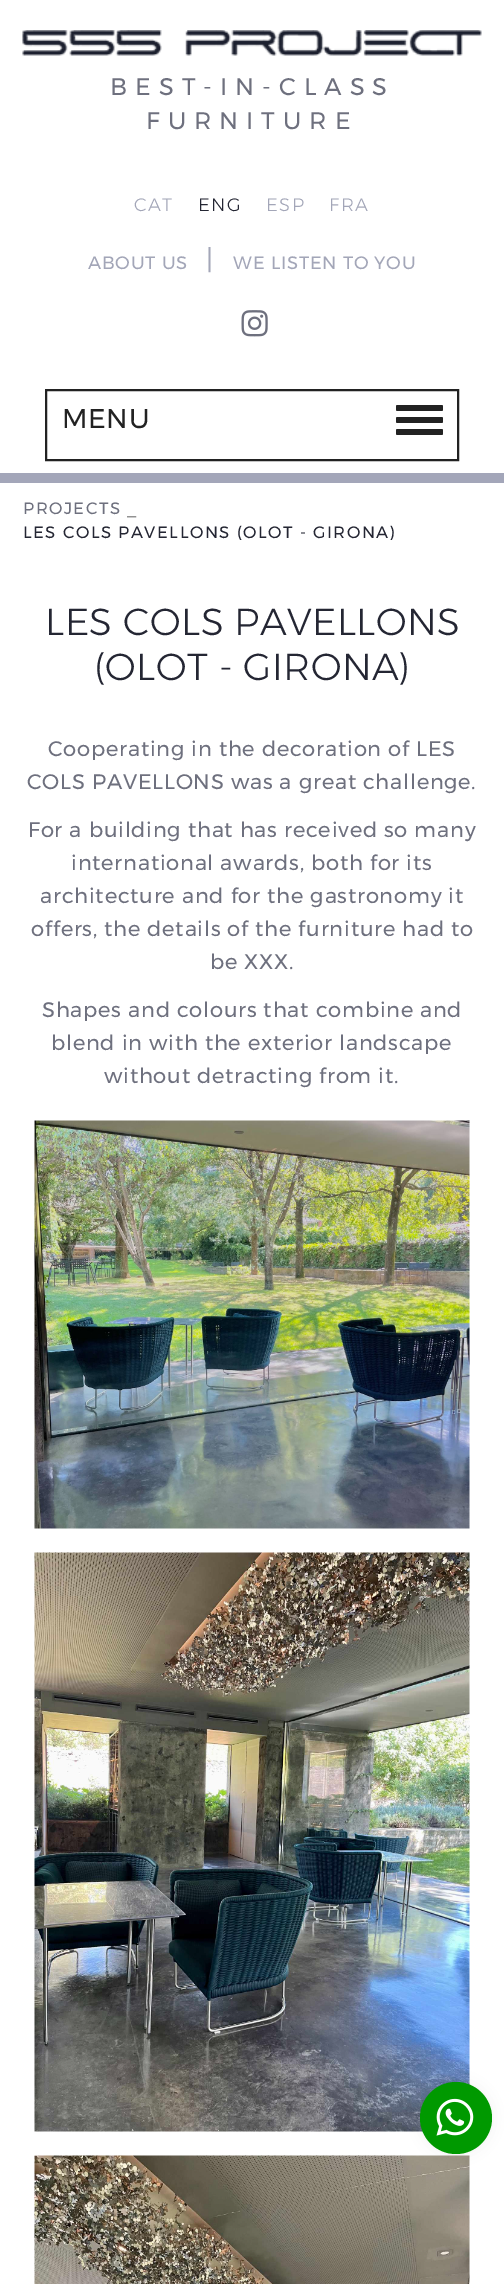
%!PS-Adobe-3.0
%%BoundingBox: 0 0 504 2284
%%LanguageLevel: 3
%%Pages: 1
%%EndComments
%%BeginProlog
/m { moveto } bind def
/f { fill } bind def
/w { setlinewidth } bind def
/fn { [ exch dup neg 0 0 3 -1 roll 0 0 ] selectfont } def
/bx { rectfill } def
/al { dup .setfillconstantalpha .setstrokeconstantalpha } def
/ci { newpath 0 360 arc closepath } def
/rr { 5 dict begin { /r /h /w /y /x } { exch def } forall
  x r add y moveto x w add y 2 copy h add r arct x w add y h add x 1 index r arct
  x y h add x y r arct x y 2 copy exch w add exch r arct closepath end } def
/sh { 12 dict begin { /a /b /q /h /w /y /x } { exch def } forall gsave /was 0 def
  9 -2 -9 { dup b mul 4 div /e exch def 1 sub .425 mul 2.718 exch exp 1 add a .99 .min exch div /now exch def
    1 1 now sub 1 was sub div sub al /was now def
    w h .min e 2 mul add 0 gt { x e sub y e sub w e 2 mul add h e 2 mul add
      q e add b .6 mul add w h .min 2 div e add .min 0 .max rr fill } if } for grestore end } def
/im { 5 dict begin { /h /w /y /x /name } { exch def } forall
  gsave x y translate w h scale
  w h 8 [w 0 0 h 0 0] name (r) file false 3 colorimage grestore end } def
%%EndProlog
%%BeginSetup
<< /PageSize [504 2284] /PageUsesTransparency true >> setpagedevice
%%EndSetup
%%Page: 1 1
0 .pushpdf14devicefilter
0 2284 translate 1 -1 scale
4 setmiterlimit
1 setgray
0 0 504 2284 bx
0.639 0.651 0.725 setrgbcolor
0 473 504 10 bx
(image0.raw) 22 30 460 26 im
/Montserrat-Regular 24 fn
0.431 0.439 0.494 setrgbcolor
110 95 m 8 0 (BEST-IN-CLASS) ashow
146 129 m 8 0 (FURNITURE) ashow
/Montserrat-Light 18 fn
0.639 0.651 0.722 setrgbcolor
134 211 m 1.5 0 (CAT) ashow
0.141 0.149 0.2 setrgbcolor
198 211 m 1.5 0 (ENG) ashow
0.639 0.651 0.722 setrgbcolor
266 211 m 1.5 0 (ESP) ashow
329 211 m 1.5 0 (FRA) ashow
/Montserrat-Regular 18 fn
88 269 m 0.75 0 (ABOUT US) ashow
/Montserrat-Regular 27 fn
206 269 m 1.5 0 (|) ashow
/Montserrat-Regular 18 fn
233 269 m 0.75 0 (WE LISTEN TO YOU) ashow
(image1.raw) 241 310 27 27 im
0.133 setgray
2 w
46 390 412 70 rectstroke
/Montserrat-Regular 27 fn
62 428 m 0.75 0 (MENU) ashow
396 405 47 6 1.5 rr f
396 417 47 6 1.5 rr f
396 429 47 6 1.5 rr f
/Montserrat-Regular 16.5 fn
0.431 0.439 0.494 setrgbcolor
23 514 m 1.5 0 (PROJECTS) ashow
0.2 setgray
127 514 m 1.5 0 (_) ashow
0.141 0.149 0.2 setrgbcolor
23 538 m 1.5 0 (LES COLS PAVELLONS \(OLOT - GIRONA\)) ashow
/Montserrat-Light 37.5 fn
45 635 m 0.4 0 (LES COLS PAVELLONS) ashow
94 680 m 0.4 0 (\(OLOT - GIRONA\)) ashow
/Montserrat-Regular 21 fn
0.431 0.439 0.494 setrgbcolor
48 756 m 0.75 0 (Cooperating in the decoration of LES) ashow
27 789 m 0.75 0 (COLS PAVELLONS was a great challenge.) ashow
28 837 m 0.75 0 (For a building that has received so many) ashow
71 870 m 0.75 0 (international awards, both for its) ashow
40 903 m 0.75 0 (architecture and for the gastronomy it) ashow
31 936 m 0.75 0 (offers, the details of the furniture had to) ashow
210 969 m 0.75 0 (be XXX.) ashow
42 1017 m 0.75 0 (Shapes and colours that combine and) ashow
51 1050 m 0.75 0 (blend in with the exterior landscape) ashow
104 1083 m 0.75 0 (without detracting from it.) ashow
(image2.raw) 34 1120 436 409 im
(image3.raw) 34 1552 436 580 im
(image4.raw) 34 2155 436 129 im
0 setgray
420 2082 72 72 36 7.5 0.05 sh
0 0.6 0 setrgbcolor
456 2118 36 ci f
(image5.raw) 436 2098 38 38 im
.poppdf14devicefilter showpage
%%EOF
